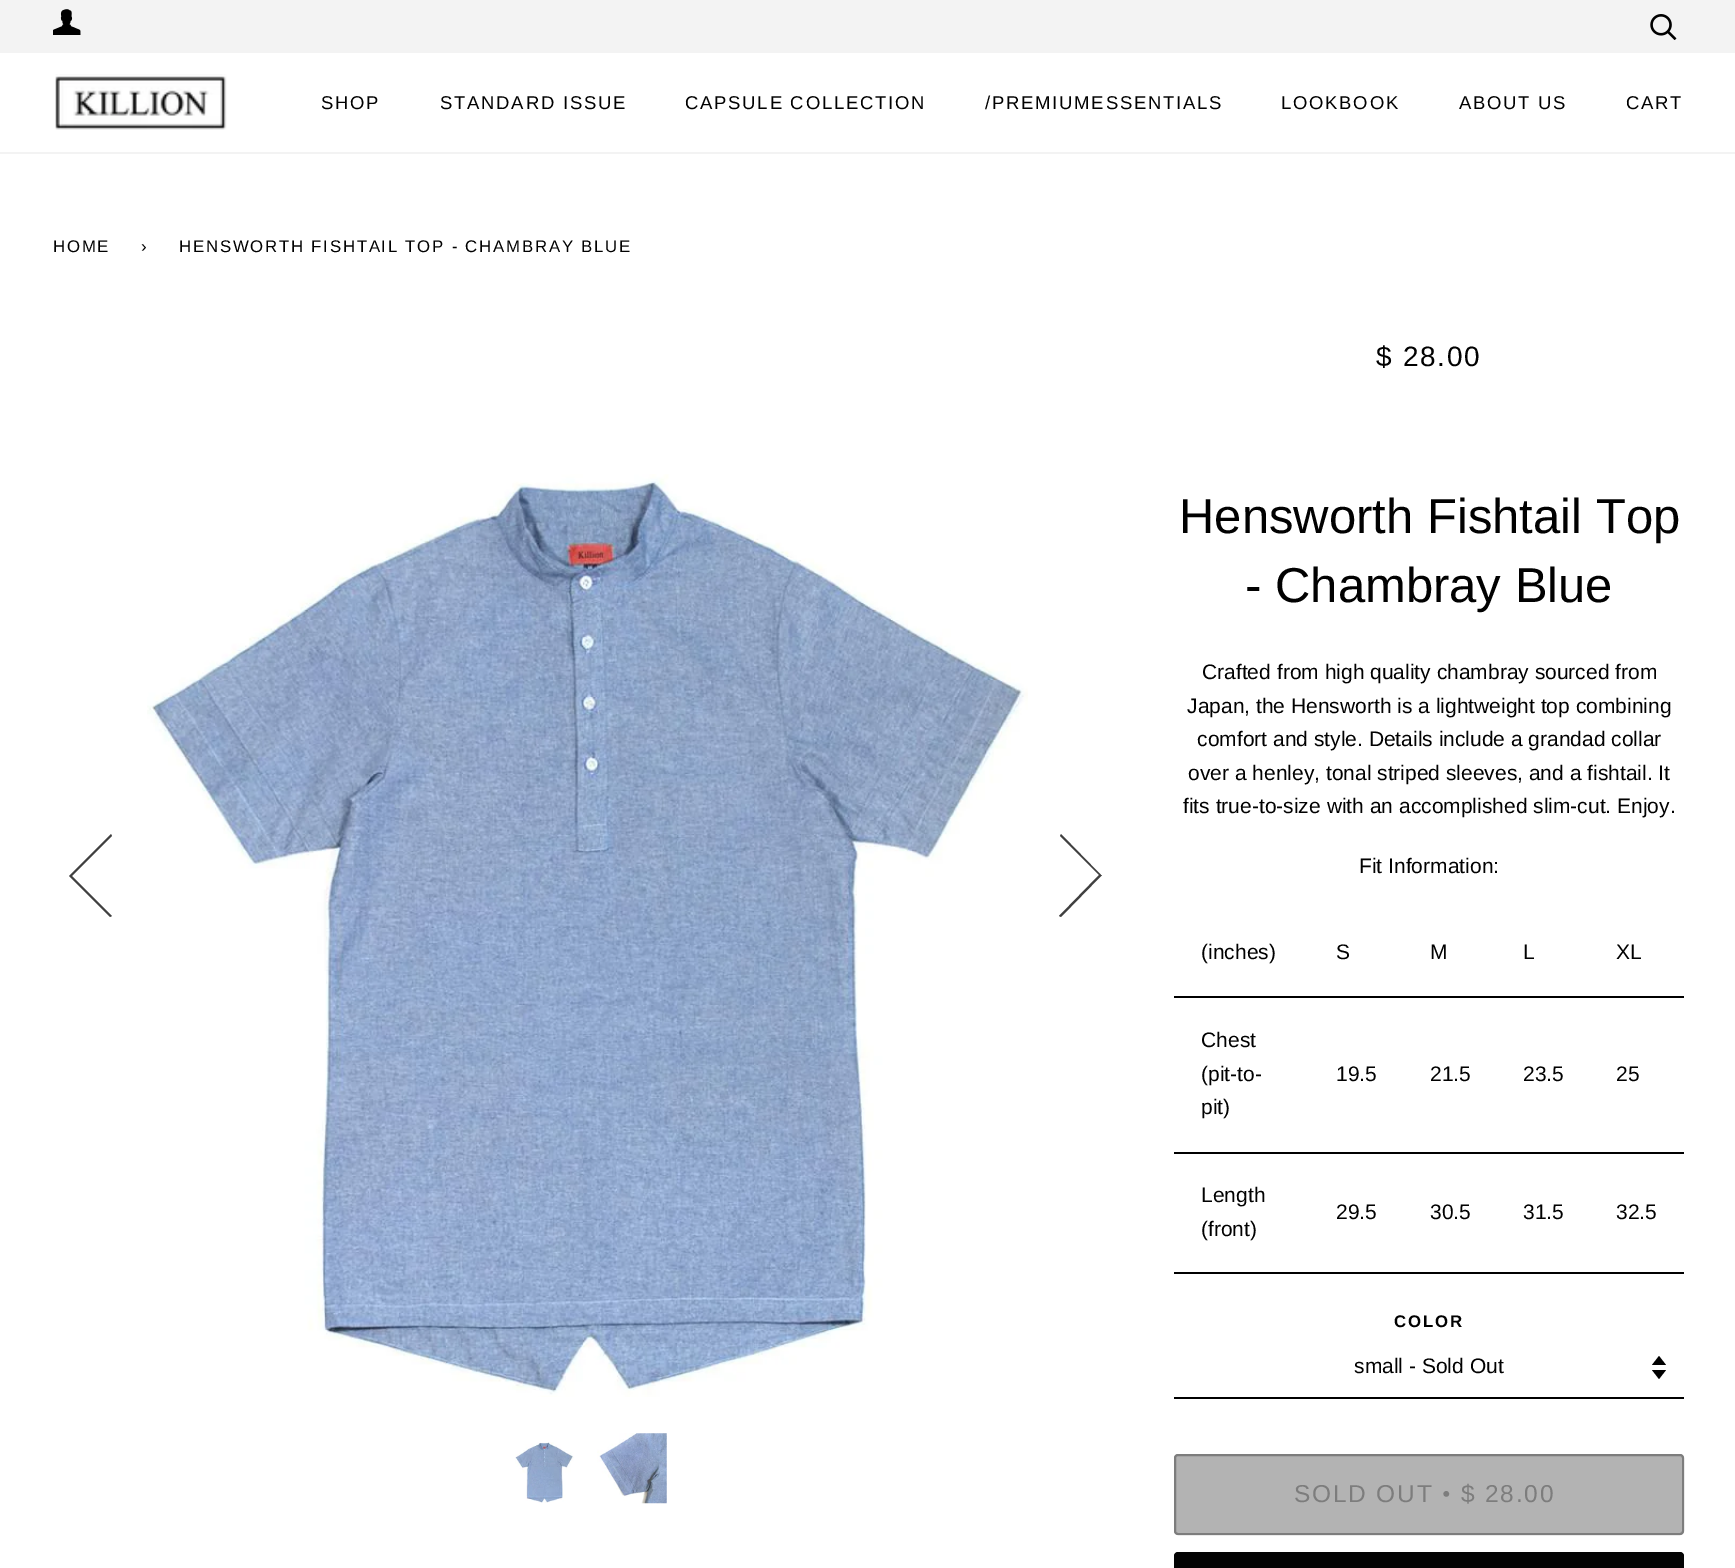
%!PS-Adobe-3.0
%%BoundingBox: 0 0 1735 1568
%%LanguageLevel: 3
%%Pages: 1
%%EndComments
%%BeginProlog
/m { moveto } bind def
/l { lineto } bind def
/h { closepath } bind def
/f { fill } bind def
/S { stroke } bind def
/w { setlinewidth } bind def
/fn { [ exch dup neg 0 0 3 -1 roll 0 0 ] selectfont } def
/tx { moveto show } def
/bx { rectfill } def
/al { dup .setfillconstantalpha .setstrokeconstantalpha } def
/rr { 5 dict begin { /r /h /w /y /x } { exch def } forall
  x r add y moveto x w add y 2 copy h add r arct x w add y h add x 1 index r arct
  x y h add x y r arct x y 2 copy exch w add exch r arct closepath end } def
/im { 5 dict begin { /h /w /y /x /name } { exch def } forall
  gsave x y translate w h scale
  w h 8 [w 0 0 h 0 0] name (r) file false 3 colorimage grestore end } def
%%EndProlog
%%BeginSetup
<< /PageSize [1735 1568] /PageUsesTransparency true >> setpagedevice
%%EndSetup
%%Page: 1 1
0 .pushpdf14devicefilter
0 1568 translate 1 -1 scale
4 setmiterlimit
1 setgray
0 0 1735 1568 bx
0.953 setgray
0 0 1735 53 bx
(image0.raw) 53 9 28 26 im
(image1.raw) 1650 14 27 26 im
0 152 1735 2 bx
(image2.raw) 55 74 172 56 im
/LiberationSans-Regular 18.5 fn
0.004 setgray
321 109 m 1.75 0 (SHOP) ashow
440 109 m 1.75 0 (STANDARD ISSUE) ashow
685 109 m 1.75 0 (CAPSULE COLLECTION) ashow
985 109 m 1.75 0 (/PREMIUMESSENTIALS) ashow
1281 109 m 1.75 0 (LOOKBOOK) ashow
1459 109 m 1.75 0 (ABOUT US) ashow
1626 109 m 1.75 0 (CART) ashow
/LiberationSans-Regular 16.8 fn
53 252 m 1.75 0 (HOME) ashow
141 252 m 1.75 0 (›) ashow
179 252 m 1.75 0 (HENSWORTH FISHTAIL TOP - CHAMBRAY BLUE) ashow
0.251 setgray
70 877 m 110 917 l 112 916 l 72 876 l 112 836 l 111 834 l 69 876 l h f
(image3.raw) 147 474 881 923 im
1101 875 m 1061 834 l 1060 836 l 1099 875 l 1059 916 l 1061 917 l 1102 875 l h f
(image4.raw) 515 1442 59 61 im
(image5.raw) 597 1433 70 71 im
/LiberationSans-Regular 28 fn
0.004 setgray
1376 366 m 1.75 0 ($ 28.00) ashow
/LiberationSans-Regular 49 fn
(Hensworth Fishtail Top) 1179 533 tx
(- Chambray Blue) 1245 602 tx
/LiberationSans-Regular 21 fn
(Crafted from high quality chambray sourced from) 1202 679 tx
(Japan, the Hensworth is a lightweight top combining) 1187 713 tx
(comfort and style. Details include a grandad collar) 1197 746 tx
(over a henley, tonal striped sleeves, and a fishtail. It) 1188 780 tx
(fits true-to-size with an accomplished slim-cut. Enjoy.) 1183 813 tx
(Fit Information:) 1359 873 tx
0 setgray
1174 996 510 2 bx
0.004 setgray
(\(inches\)) 1201 959 tx
(S) 1336 959 tx
(M) 1430 959 tx
(L) 1523 959 tx
(XL) 1616 959 tx
0 setgray
1174 1152 510 2 bx
0.004 setgray
(Chest) 1201 1047 tx
(\(pit-to-) 1201 1081 tx
(pit\)) 1201 1114 tx
(19.5) 1336 1081 tx
(21.5) 1430 1081 tx
(23.5) 1523 1081 tx
(25) 1616 1081 tx
0 setgray
1174 1272 510 2 bx
0.004 setgray
(Length) 1201 1202 tx
(\(front\)) 1201 1236 tx
(29.5) 1336 1219 tx
(30.5) 1430 1219 tx
(31.5) 1523 1219 tx
(32.5) 1616 1219 tx
/LiberationSans-Bold 16.8 fn
1394 1327 m 1.75 0 (COLOR) ashow
0 setgray
1652 1370 m 1659 1379 l 1666 1370 l h 1659 1356 m 1652 1365 l 1666 1365 l h f
1174 1397 510 2 bx
/LiberationSans-Regular 21 fn
0.004 setgray
(small - Sold Out) 1354 1373 tx
0.702 setgray
1174 1454 510 81 4 rr f
0.3 al
0 setgray
2 w
1175 1455 508 79 3 rr S
/LiberationSans-Regular 24.5 fn
1 al
0.49 setgray
1294 1502 m 1.75 0 (SOLD OUT) ashow
/LiberationSerif-Regular 24.5 fn
1442 1502 m 1.75 0 (•) ashow
/LiberationSans-Regular 24.5 fn
1461 1502 m 1.75 0 ($ 28.00) ashow
0.016 setgray
1174 1552 510 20 4 rr f
.poppdf14devicefilter showpage
%%EOF
